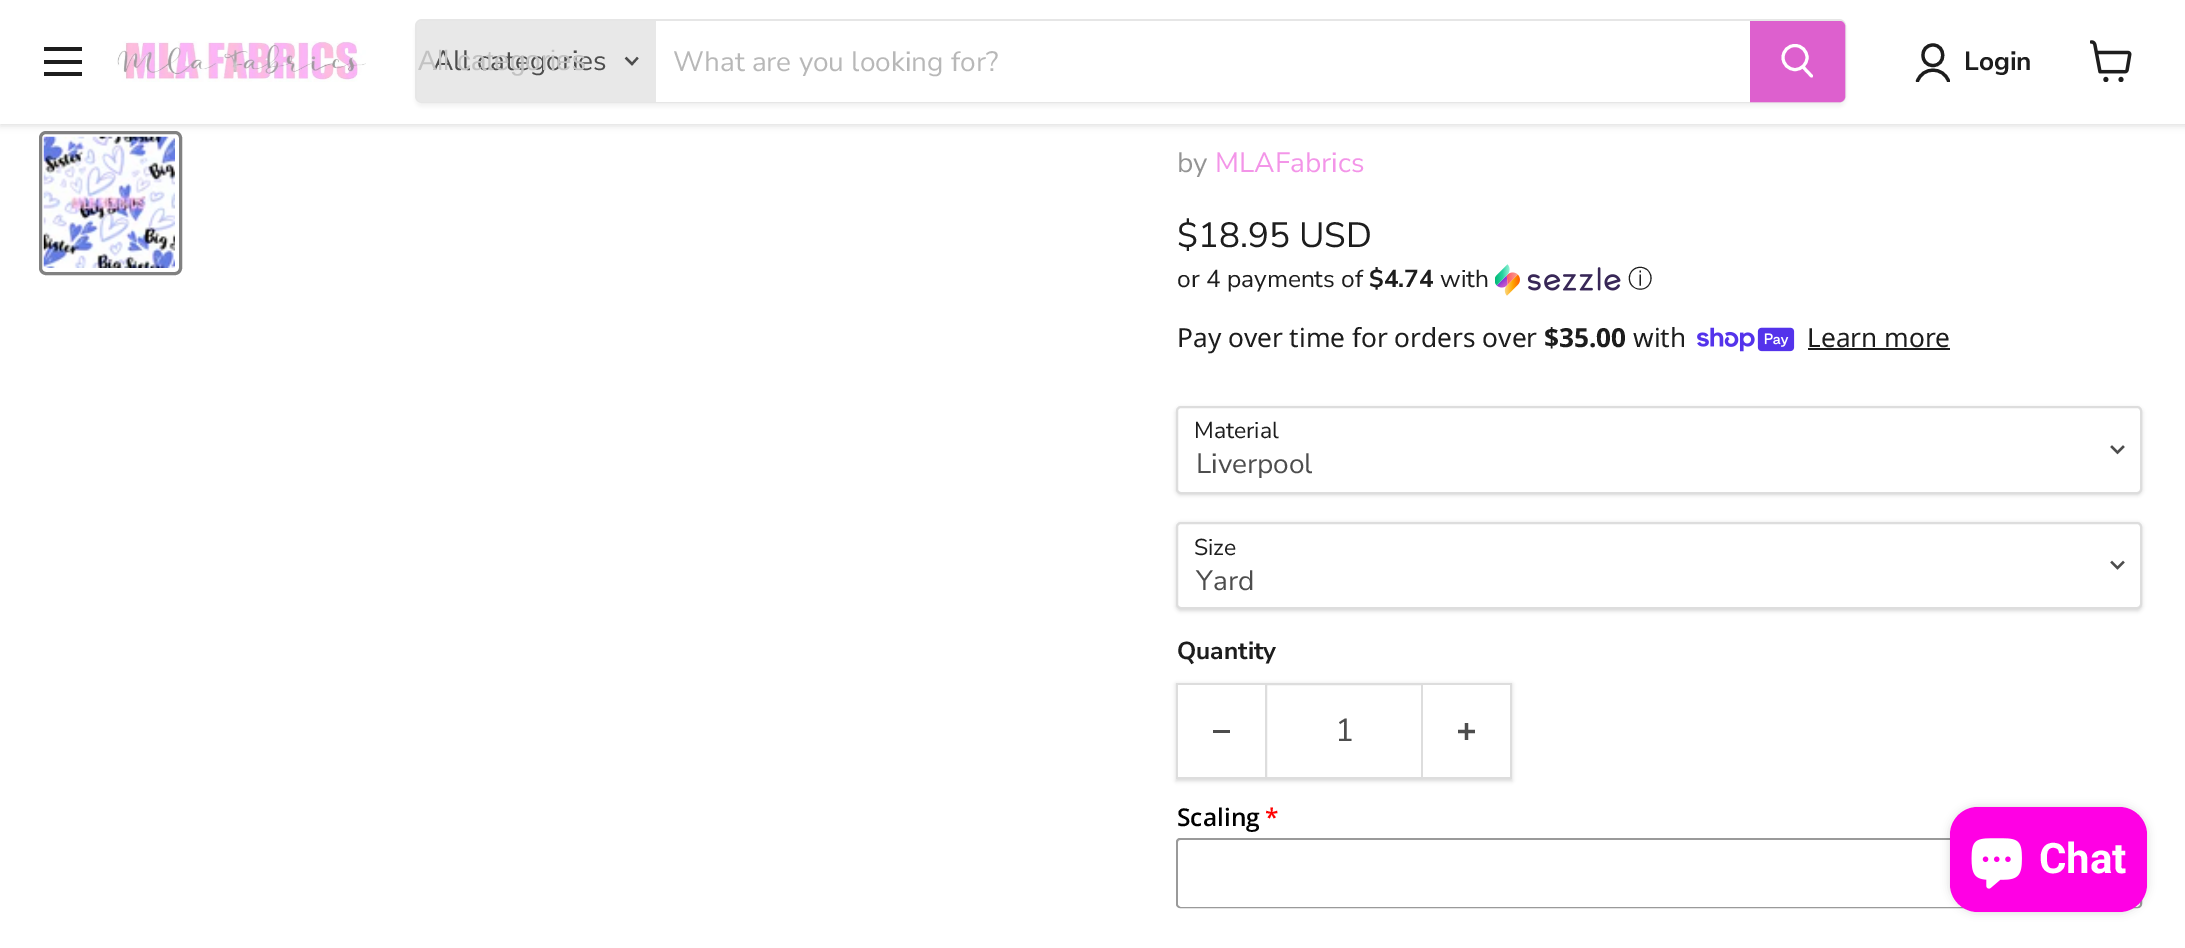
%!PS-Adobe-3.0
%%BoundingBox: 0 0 2185 948
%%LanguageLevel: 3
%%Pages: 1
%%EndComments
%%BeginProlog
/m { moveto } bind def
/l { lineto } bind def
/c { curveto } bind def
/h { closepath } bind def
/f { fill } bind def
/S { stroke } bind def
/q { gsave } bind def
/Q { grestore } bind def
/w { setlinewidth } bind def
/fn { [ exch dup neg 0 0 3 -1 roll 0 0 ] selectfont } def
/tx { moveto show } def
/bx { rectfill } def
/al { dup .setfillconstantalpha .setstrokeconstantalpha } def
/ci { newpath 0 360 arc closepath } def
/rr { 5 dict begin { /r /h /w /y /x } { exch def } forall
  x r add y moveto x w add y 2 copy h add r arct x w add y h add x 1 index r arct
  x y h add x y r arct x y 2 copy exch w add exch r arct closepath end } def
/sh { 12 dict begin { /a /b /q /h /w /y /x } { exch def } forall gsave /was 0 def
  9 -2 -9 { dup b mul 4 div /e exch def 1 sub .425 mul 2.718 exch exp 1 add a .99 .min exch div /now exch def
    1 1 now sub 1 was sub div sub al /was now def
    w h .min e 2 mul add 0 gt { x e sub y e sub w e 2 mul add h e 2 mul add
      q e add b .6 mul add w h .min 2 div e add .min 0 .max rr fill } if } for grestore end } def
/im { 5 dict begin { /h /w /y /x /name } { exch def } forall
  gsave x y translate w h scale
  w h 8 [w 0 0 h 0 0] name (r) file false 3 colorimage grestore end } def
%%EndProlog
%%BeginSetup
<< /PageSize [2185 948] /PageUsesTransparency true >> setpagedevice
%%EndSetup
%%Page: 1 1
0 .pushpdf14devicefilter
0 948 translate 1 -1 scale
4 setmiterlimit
1 setgray
0 0 2185 948 bx
0.506 setgray
3 w
40.5 132.5 140 141 5.5 rr S
(image2.raw) 43 136 132 132 im
0.502 setgray
0 2 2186 124 0 3.5 0.25 sh
1 setgray
0 0 2185 124 bx
0.114 setgray
44 47 38 4 bx
44 60 38 4 bx
44 72 38 4 bx
(image0.raw) 117 41 249 41 im
0.502 setgray
415 23 1431 84 7 2.5 0.11 sh
0.902 setgray
2 w
416 20 1429 82 6 rr S
0.91 setgray
422 21 m 656 21 l 656 102 l 422 102 l 419 102 417 100 417 97 c 417 26 l 417 23 419 21 422 21 c h f
/NunitoSans-Regular 28 fn
0.302 setgray
(All categories) 433 70 tx
/LiberationSans-Regular 28 fn
0.761 setgray
(All categories) 418 70 tx
0.302 setgray
2.2 w
2 setlinecap
632 64 m 637 58.5 l 632 64 m 626.5 58.5 l S
1 setgray
656 21 1094 81 bx
/NunitoSans-Regular 28 fn
0.722 setgray
(What are you looking for?) 673 71 tx
0.867 0.376 0.808 setrgbcolor
1751 22 m 1840 22 l 1842 22 1844 24 1844 26 c 1844 97 l 1844 99 1842 101 1840 101 c 1751 101 l h q f Q
2 w
0 setlinecap
S
1 setgray
3 w
1 setlinecap
1811.5 76 m 1803.5 67.5 l S
0 setlinecap
1795 57.5 12 ci S
0.114 setgray
3.2 w
1 setlinecap
1 setlinejoin
1933 65.5 m 1946 65.5 1946 45 1933 45 c 1919.5 45 1919.5 65.5 1933 65.5 c h S
q
1915 42 35 40 rectclip
1948.5 81 m 1943 66.5 1923 66.5 1917.5 81 c S
Q
/NunitoSans-Bold 26.25 fn
(Login) 1964 70 tx
(image1.raw) 2090 40 42 42 im
/NunitoSans-Regular 28 fn
0.58 setgray
(by) 1177 172 tx
0.953 0.584 0.91 setrgbcolor
(MLAFabrics) 1215 172 tx
/NunitoSans-Regular 35 fn
0.114 setgray
($18.95 USD) 1177 247 tx
/NunitoSans-Regular 24.5 fn
(or 4 payments of) 1177 287 tx
/NunitoSans-Bold 24.5 fn
($4.74) 1369 287 tx
/NunitoSans-Regular 24.5 fn
(with) 1440 287 tx
(image3.raw) 1495 264 126 32 im
/WenQuanYiZenHei-Medium 24.5 fn
(ⓘ) 1628 287 tx
/NotoSans-Regular 26.25 fn
(Pay over time for orders over) 1177 347 tx
/NotoSans-Bold 26.25 fn
($35.00) 1544 347 tx
/NotoSans-Regular 26.25 fn
(with) 1633 347 tx
(image4.raw) 1697 327 98 25 im
(Learn more) 1807 347 tx
1808 348 142 2 bx
0 setgray
1176 408 966 87 5 2 0.15 sh
1 setgray
1177 407 964 86 4 rr q f Q
0.867 setgray
2 w
0 setlinecap
0 setlinejoin
S
/NunitoSans-Regular 23 fn
0.114 setgray
(Material) 1194 438 tx
0.302 setgray
2.2 w
2 setlinecap
2117.5 452.5 m 2123 447 l 2117.5 452.5 m 2112 447 l S
/NunitoSans-Regular 28 fn
(Liverpool) 1196 473 tx
0 setgray
1176 523 966 88 5 2 0.15 sh
1 setgray
1177 523 964 85 4 rr q f Q
0.867 setgray
2 w
0 setlinecap
S
/NunitoSans-Regular 23 fn
0.114 setgray
(Size) 1194 555 tx
0.302 setgray
2.2 w
2 setlinecap
2117.5 568 m 2123 562.5 l 2117.5 568 m 2112 562.5 l S
/NunitoSans-Regular 28 fn
(Yard) 1196 590 tx
/NunitoSans-Bold 24.5 fn
0.114 setgray
(Quantity) 1177 659 tx
0 setgray
1176 684 336 97 0 2 0.15 sh
1 setgray
1178 685 87 92 bx
0.867 setgray
1176 683 89 2 bx
1176 777 89 2 bx
1176 683 2 96 bx
0.302 setgray
1213 730 17 3 bx
1 setgray
1266 684 m 1422 684 l 1422 778 l 1266 778 l h q f Q
0.867 setgray
2 w
0 setlinecap
S
/NunitoSans-Regular 32 fn
0.302 setgray
(1) 1335 741 tx
1 setgray
1423 685 87 92 bx
0.867 setgray
1423 683 89 2 bx
1510 683 2 96 bx
1423 777 89 2 bx
(image5.raw) 1458 723 17 17 im
/OpenSans-SemiBold 24.5 fn
0 setgray
(Scaling) 1177 826 tx
1 0 0 setrgbcolor
(*) 1265 826 tx
0.604 setgray
1177 839 964 68 3 rr S
1 setgray
1178 840 962 67 4 rr f
0 setgray
1950 807 197 105 28 4.5 0.15 sh
1 0 0.894 setrgbcolor
1950 807 197 105 28 rr f
(image6.raw) 1971 838 51 51 im
/Roboto-Bold 42 fn
1 setgray
(Chat) 2039 873 tx
.poppdf14devicefilter showpage
%%EOF
